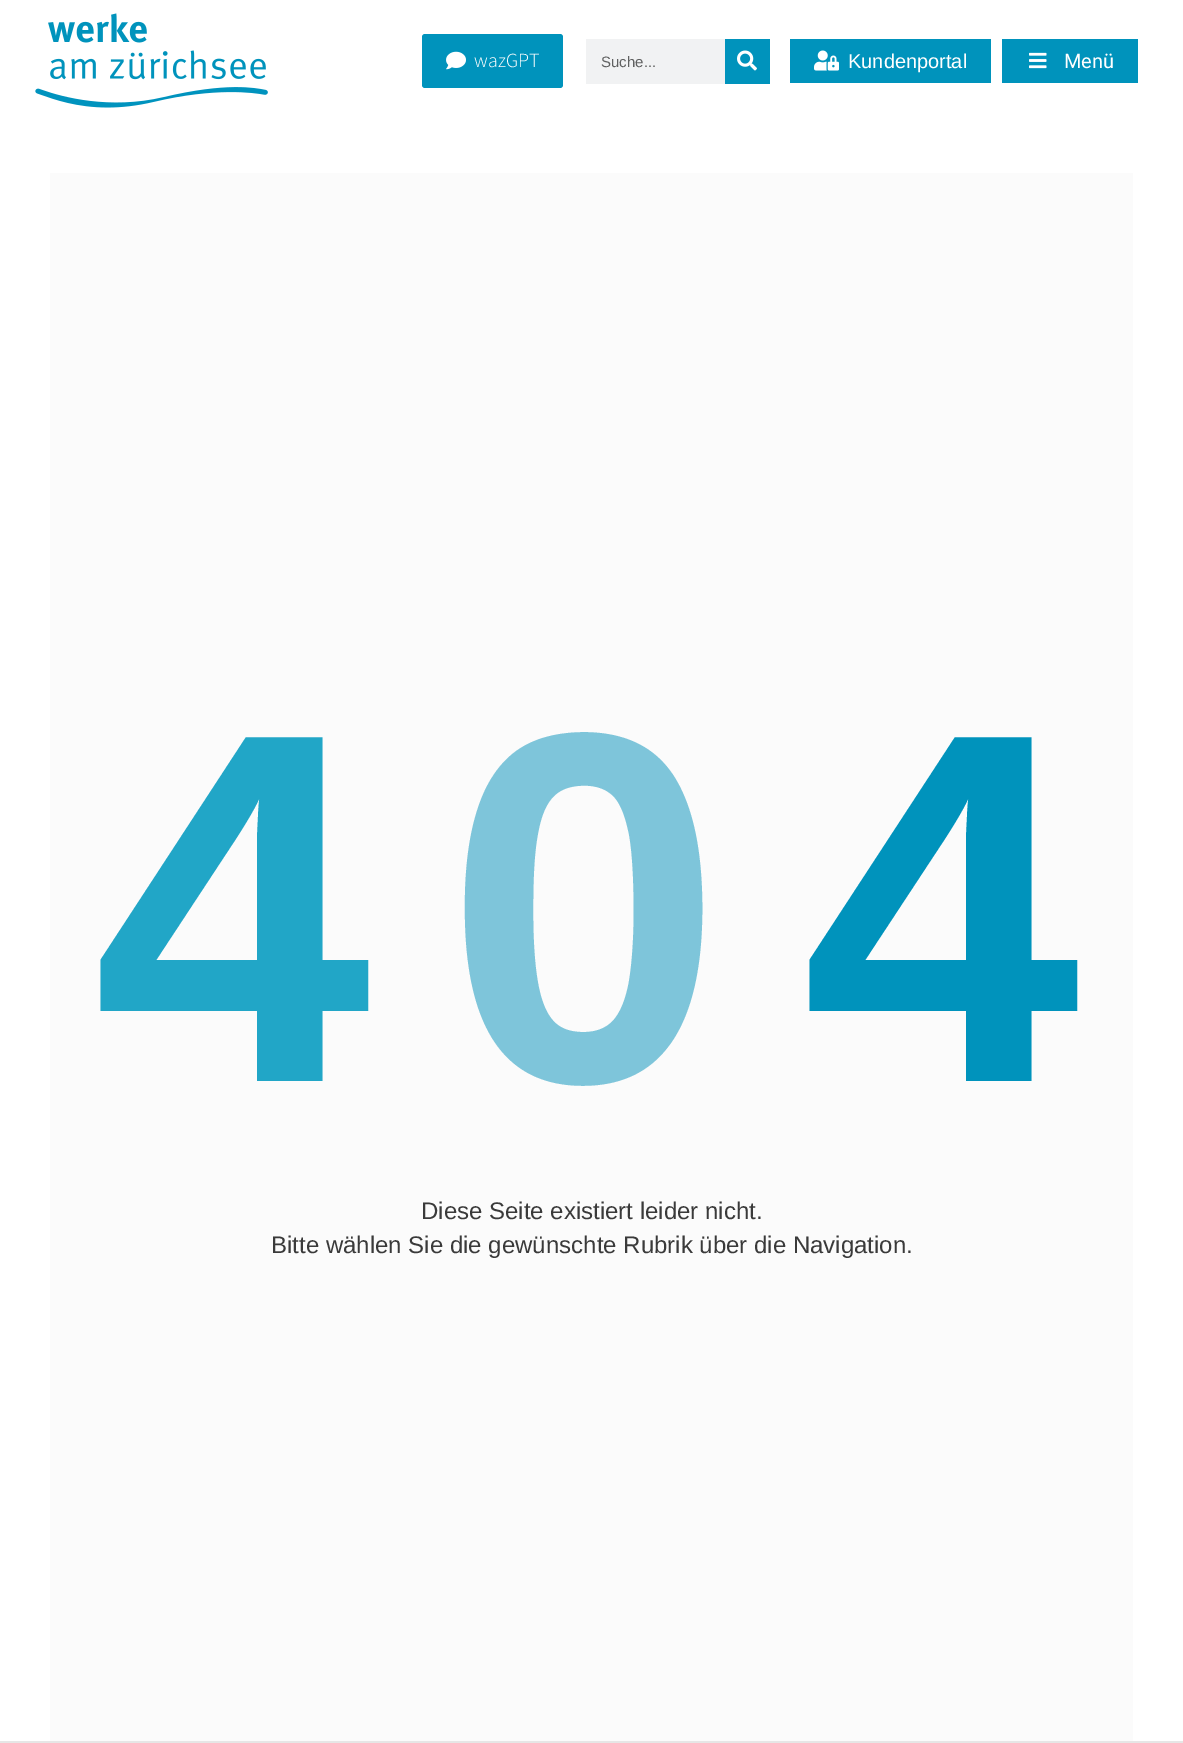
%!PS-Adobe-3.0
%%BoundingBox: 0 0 1183 1743
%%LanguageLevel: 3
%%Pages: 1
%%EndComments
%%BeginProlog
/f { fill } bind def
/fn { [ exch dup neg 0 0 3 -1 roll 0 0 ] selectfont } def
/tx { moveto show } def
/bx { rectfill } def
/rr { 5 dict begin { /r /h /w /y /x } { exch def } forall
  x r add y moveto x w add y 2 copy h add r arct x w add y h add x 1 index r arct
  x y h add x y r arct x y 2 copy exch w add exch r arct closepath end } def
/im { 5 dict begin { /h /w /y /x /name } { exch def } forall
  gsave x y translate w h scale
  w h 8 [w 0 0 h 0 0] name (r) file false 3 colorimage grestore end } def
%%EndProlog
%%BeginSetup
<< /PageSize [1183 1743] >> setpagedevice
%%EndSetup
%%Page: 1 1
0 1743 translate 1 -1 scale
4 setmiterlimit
1 setgray
0 0 1183 1743 bx
(image0.raw) 35 13 233 95 im
0 0.576 0.737 setrgbcolor
422 34 141 54 3 rr f
(image1.raw) 446 51 20 19 im
/SourceSans3-Light 20 fn
1 setgray
(wazGPT) 474 67 tx
0.945 0.949 0.953 setrgbcolor
586 39 139 45 bx
/LiberationSans-Regular 15 fn
0.376 0.38 0.38 setrgbcolor
(Suche...) 601 67 tx
0 0.576 0.737 setrgbcolor
725 39 45 45 bx
(image2.raw) 737 50 20 21 im
790 39 201 44 bx
(image3.raw) 814 50 25 21 im
/LiberationSans-Regular 20 fn
1 setgray
(Kundenportal) 848 68 tx
0 0.576 0.737 setrgbcolor
1002 39 136 44 bx
(image4.raw) 1029 52 18 17 im
/Roboto-Regular 20 fn
1 setgray
(Menü) 1064 68 tx
0.984 setgray
50 173 1083 1568 bx
/LiberationSans-Bold 500 fn
0.129 0.651 0.78 setrgbcolor
(4) 93 1081 tx
0.494 0.773 0.855 setrgbcolor
(0) 445 1081 tx
0 0.576 0.737 setrgbcolor
(4) 802 1081 tx
/LiberationSans-Regular 24 fn
0.227 setgray
(Diese Seite existiert leider nicht.) 421 1219 tx
(Bitte wählen Sie die gewünschte Rubrik über die Navigation.) 271 1253 tx
0.902 setgray
0 1741 1183 2 bx
showpage
%%EOF
